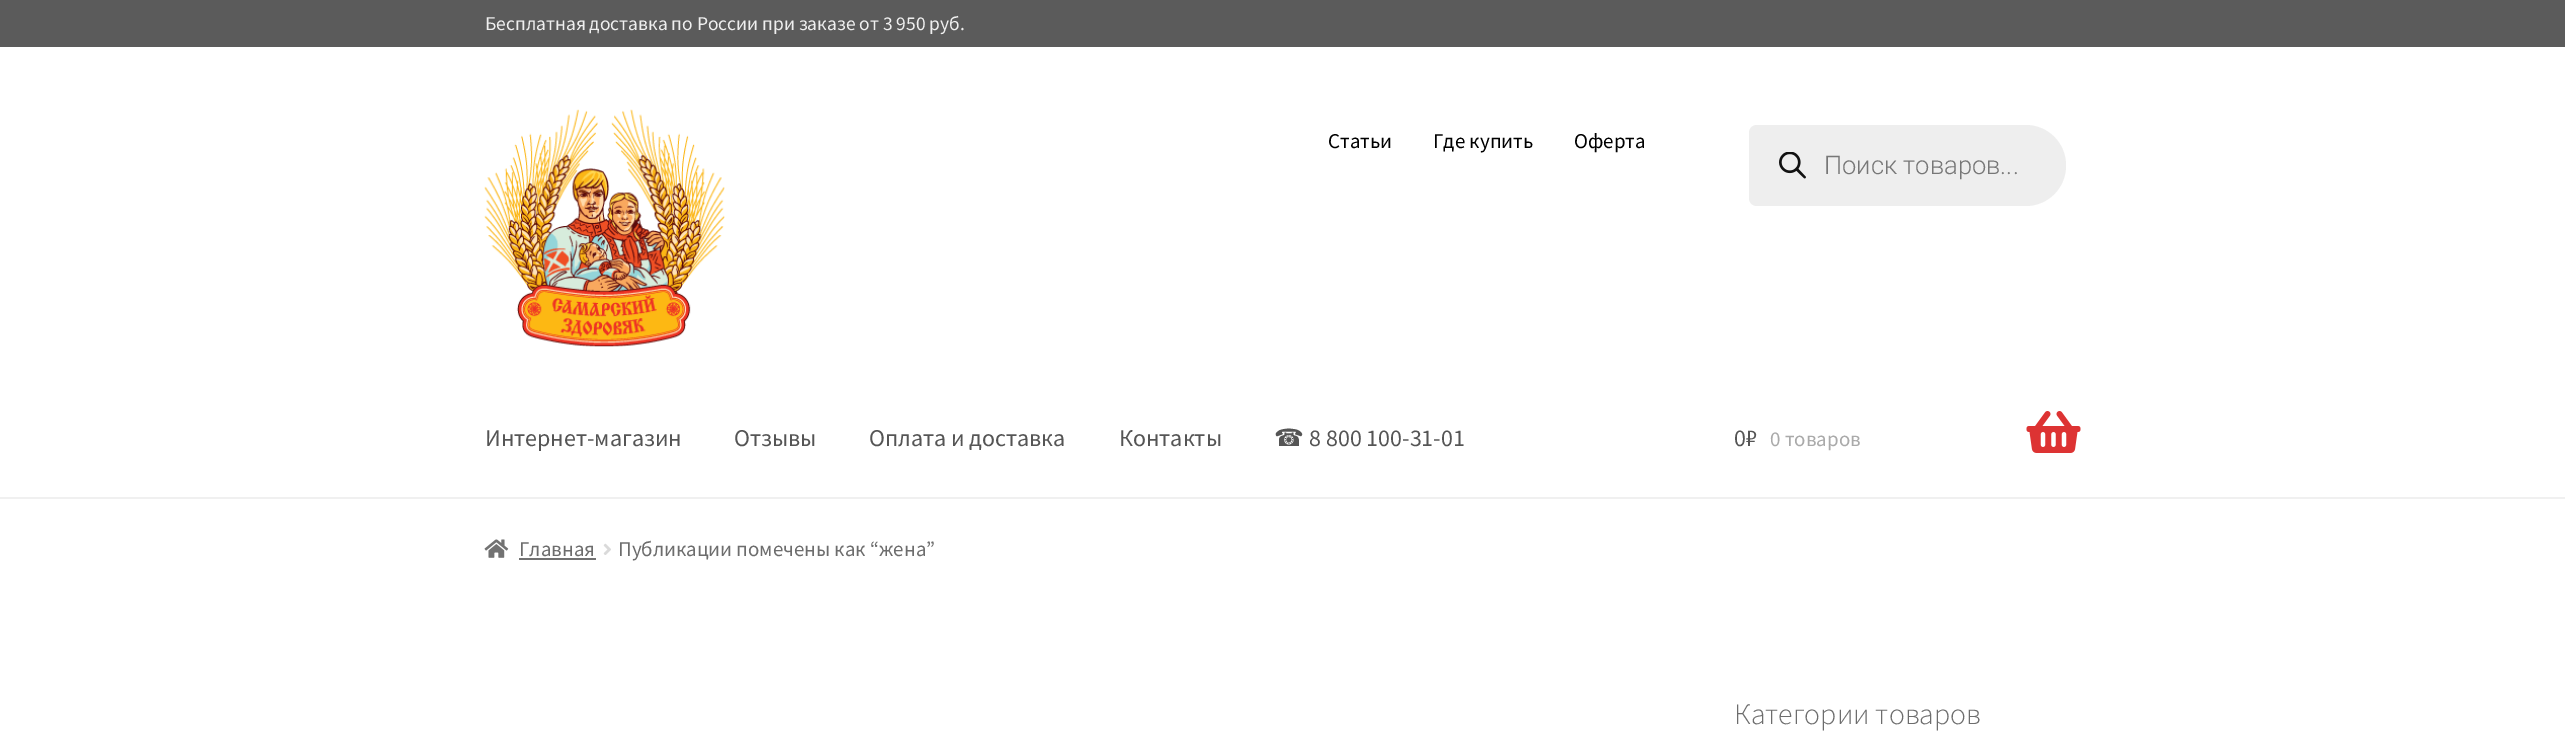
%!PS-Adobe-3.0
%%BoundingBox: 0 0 2565 733
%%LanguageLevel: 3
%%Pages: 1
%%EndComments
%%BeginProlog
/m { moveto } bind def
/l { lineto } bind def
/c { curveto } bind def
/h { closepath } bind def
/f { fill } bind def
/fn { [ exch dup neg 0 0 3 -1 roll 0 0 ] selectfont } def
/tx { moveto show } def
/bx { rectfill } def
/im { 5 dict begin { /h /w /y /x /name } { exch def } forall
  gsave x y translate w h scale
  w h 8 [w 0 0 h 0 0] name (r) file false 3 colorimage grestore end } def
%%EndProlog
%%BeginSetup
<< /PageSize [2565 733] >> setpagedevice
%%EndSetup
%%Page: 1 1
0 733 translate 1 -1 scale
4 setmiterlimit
1 setgray
0 0 2565 733 bx
0.357 setgray
0 0 2565 47 bx
/SourceSansPro-Regular 19.5 fn
0.937 setgray
(Бесплатная доставка по России при заказе от 3 950 руб.) 485 30 tx
0.941 setgray
0 497 2565 2 bx
(image0.raw) 484 109 241 238 im
/SourceSansPro-Regular 21 fn
0 setgray
(Статьи) 1328 148 tx
(Где купить) 1433 148 tx
(Оферта) 1574 148 tx
0.933 setgray
1757 125 m 2025.5 125 l 2048 125 2066 143 2066 165.5 c 2066 188 2048 206 2025.5 206 c 1757 206 l 1752.5 206 1749 202.5 1749 198 c 1749 133 l 1749 128.5 1752.5 125 1757 125 c h f
(image1.raw) 1779 152 27 27 im
/Roboto-Light 25.5 fn
0.467 setgray
(Поиск товаров...) 1824 174 tx
/SourceSansPro-Regular 24 fn
0.333 setgray
(Интернет-магазин) 485 446 tx
(Отзывы) 734 446 tx
(Оплата и доставка) 869 446 tx
(Контакты) 1119 446 tx
/DejaVuSans-Regular 24 fn
(☎) 1274 446 tx
/SourceSansPro-Regular 24 fn
(8 800 100-31-01) 1309 446 tx
(0₽) 1734 446 tx
/SourceSansPro-Regular 21 fn
0.667 setgray
(0 товаров) 1770 446 tx
(image2.raw) 2026 411 55 42 im
(image3.raw) 484 539 25 19 im
0.427 setgray
(Главная) 519 556 tx
0.447 setgray
519 558 77 2 bx
(image4.raw) 603 543 8 12 im
0.427 setgray
(Публикации помечены как “жена”) 618 556 tx
/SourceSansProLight-Light 29.75 fn
(Категории товаров) 1734 724 tx
showpage
%%EOF
